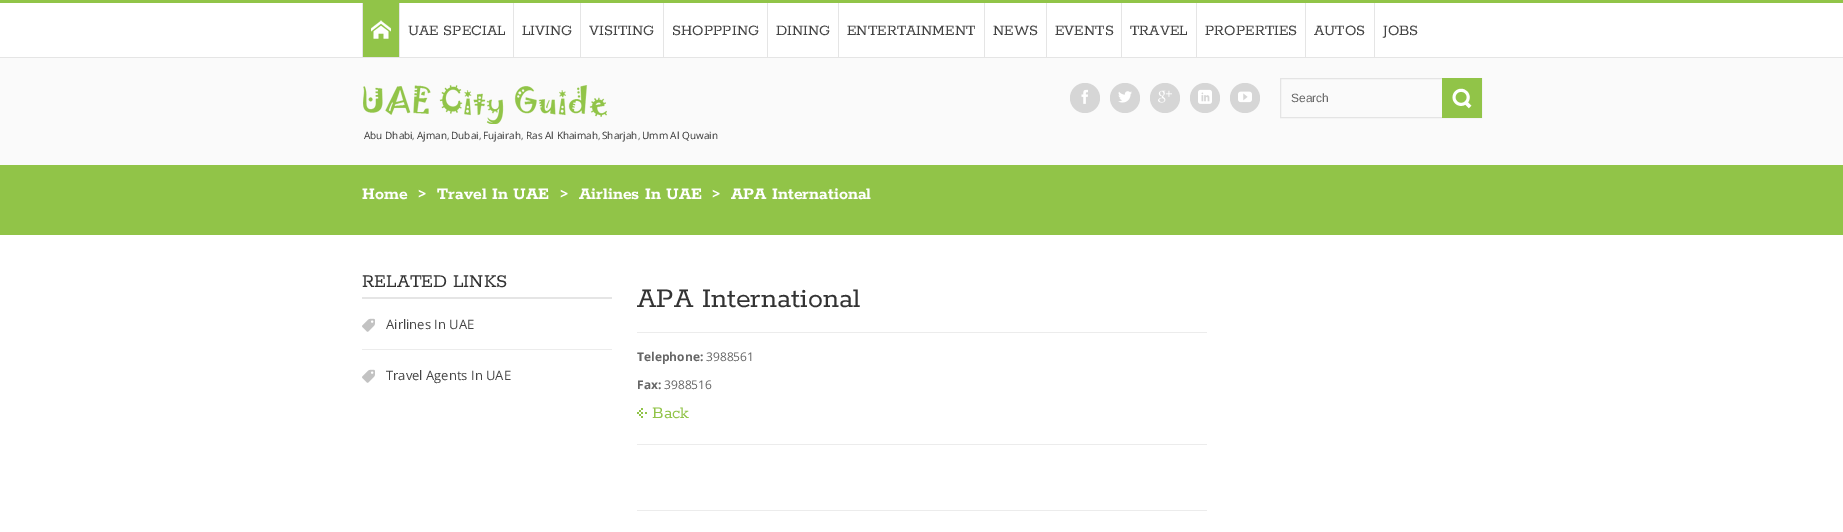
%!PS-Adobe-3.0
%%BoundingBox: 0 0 1843 532
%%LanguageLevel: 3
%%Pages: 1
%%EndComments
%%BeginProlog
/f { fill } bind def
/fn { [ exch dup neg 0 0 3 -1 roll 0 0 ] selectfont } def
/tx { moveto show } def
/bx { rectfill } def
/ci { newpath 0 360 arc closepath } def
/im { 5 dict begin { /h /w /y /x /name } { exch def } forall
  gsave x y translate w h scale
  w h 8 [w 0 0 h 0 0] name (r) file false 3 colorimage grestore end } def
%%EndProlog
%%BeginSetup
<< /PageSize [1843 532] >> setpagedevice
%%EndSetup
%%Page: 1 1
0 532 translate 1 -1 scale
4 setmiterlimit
1 setgray
0 0 1843 532 bx
0.569 0.769 0.282 setrgbcolor
0 0 1843 3 bx
0.898 setgray
0 57 1843 1 bx
0.569 0.769 0.282 setrgbcolor
363 3 36 54 bx
(image0.raw) 371 20 20 19 im
0.898 setgray
362 3 1 54 bx
399 3 1 54 bx
/Rokkitt-Regular 16 fn
0.267 setgray
(UAE SPECIAL) 408 35 tx
0.898 setgray
513 3 1 54 bx
0.267 setgray
(LIVING) 522 35 tx
0.898 setgray
580 3 1 54 bx
0.267 setgray
(VISITING) 589 35 tx
0.898 setgray
663 3 1 54 bx
0.267 setgray
(SHOPPPING) 672 35 tx
0.898 setgray
767 3 1 54 bx
0.267 setgray
(DINING) 776 35 tx
0.898 setgray
838 3 1 54 bx
0.267 setgray
(ENTERTAINMENT) 847 35 tx
0.898 setgray
984 3 1 54 bx
0.267 setgray
(NEWS) 993 35 tx
0.898 setgray
1046 3 1 54 bx
0.267 setgray
(EVENTS) 1055 35 tx
0.898 setgray
1121 3 1 54 bx
0.267 setgray
(TRAVEL) 1130 35 tx
0.898 setgray
1196 3 1 54 bx
0.267 setgray
(PROPERTIES) 1205 35 tx
0.898 setgray
1305 3 1 54 bx
0.267 setgray
(AUTOS) 1314 35 tx
0.898 setgray
1374 3 1 54 bx
0.267 setgray
(JOBS) 1383 35 tx
0.98 setgray
0 58 1843 107 bx
(image1.raw) 363 85 244 39 im
0.839 setgray
1085 98 15 ci f
(image2.raw) 1081 89 7 15 im
1125 98 15 ci f
(image3.raw) 1118 91 14 12 im
1165 98 15 ci f
(image4.raw) 1158 90 14 13 im
1205 98 15 ci f
(image5.raw) 1198 89 14 15 im
1245 98 15 ci f
(image6.raw) 1238 91 14 12 im
0.894 setgray
1280.5 78.5 201 39 rectstroke
/LiberationSans-Regular 12 fn
0.4 setgray
(Search) 1291 102 tx
0.569 0.769 0.282 setrgbcolor
1442 78 40 40 bx
(image7.raw) 1452 88 20 21 im
/OpenSans-Regular 10 fn
0.2 setgray
(Abu Dhabi) 364 139 tx
0.4 setgray
(,) 412 139 tx
0.2 setgray
(Ajman) 417 139 tx
0.4 setgray
(,) 447 139 tx
0.2 setgray
(Dubai) 451 139 tx
0.4 setgray
(,) 479 139 tx
0.2 setgray
(Fujairah) 483 139 tx
0.4 setgray
(,) 521 139 tx
0.2 setgray
(Ras Al Khaimah) 526 139 tx
0.4 setgray
(,) 598 139 tx
0.2 setgray
(Sharjah) 602 139 tx
0.4 setgray
(,) 638 139 tx
0.2 setgray
(Umm Al Quwain) 642 139 tx
0.569 0.769 0.282 setrgbcolor
0 165 1843 70 bx
/Rokkitt-Bold 18 fn
1 setgray
(Home) 362 199 tx
(>) 418 199 tx
(Travel In UAE) 437 199 tx
(>) 560 199 tx
(Airlines In UAE) 579 199 tx
(>) 712 199 tx
(APA International) 731 199 tx
0.898 setgray
362 297 250 2 bx
/Rokkitt-Regular 20 fn
0.2 setgray
(RELATED LINKS) 362 287 tx
0.925 setgray
362 349 250 1 bx
(image8.raw) 362 318 13 14 im
/OpenSans-Regular 13 fn
0.267 setgray
(Airlines In UAE) 386 329 tx
(image8.raw) 362 369 13 14 im
(Travel Agents In UAE) 386 380 tx
0.925 setgray
637 444 570 1 bx
637 332 570 1 bx
/Rokkitt-Regular 30 fn
0.2 setgray
(APA International) 637 307 tx
/OpenSans-Bold 12 fn
0.4 setgray
(Telephone:) 637 361 tx
/OpenSans-Regular 12 fn
(3988561) 706 361 tx
/OpenSans-Bold 12 fn
(Fax:) 637 389 tx
/OpenSans-Regular 12 fn
(3988516) 664 389 tx
(image9.raw) 637 408 10 10 im
/Rokkitt-Regular 18 fn
0.569 0.769 0.282 setrgbcolor
(Back) 652 418 tx
0.925 setgray
637 510 570 1 bx
showpage
%%EOF
